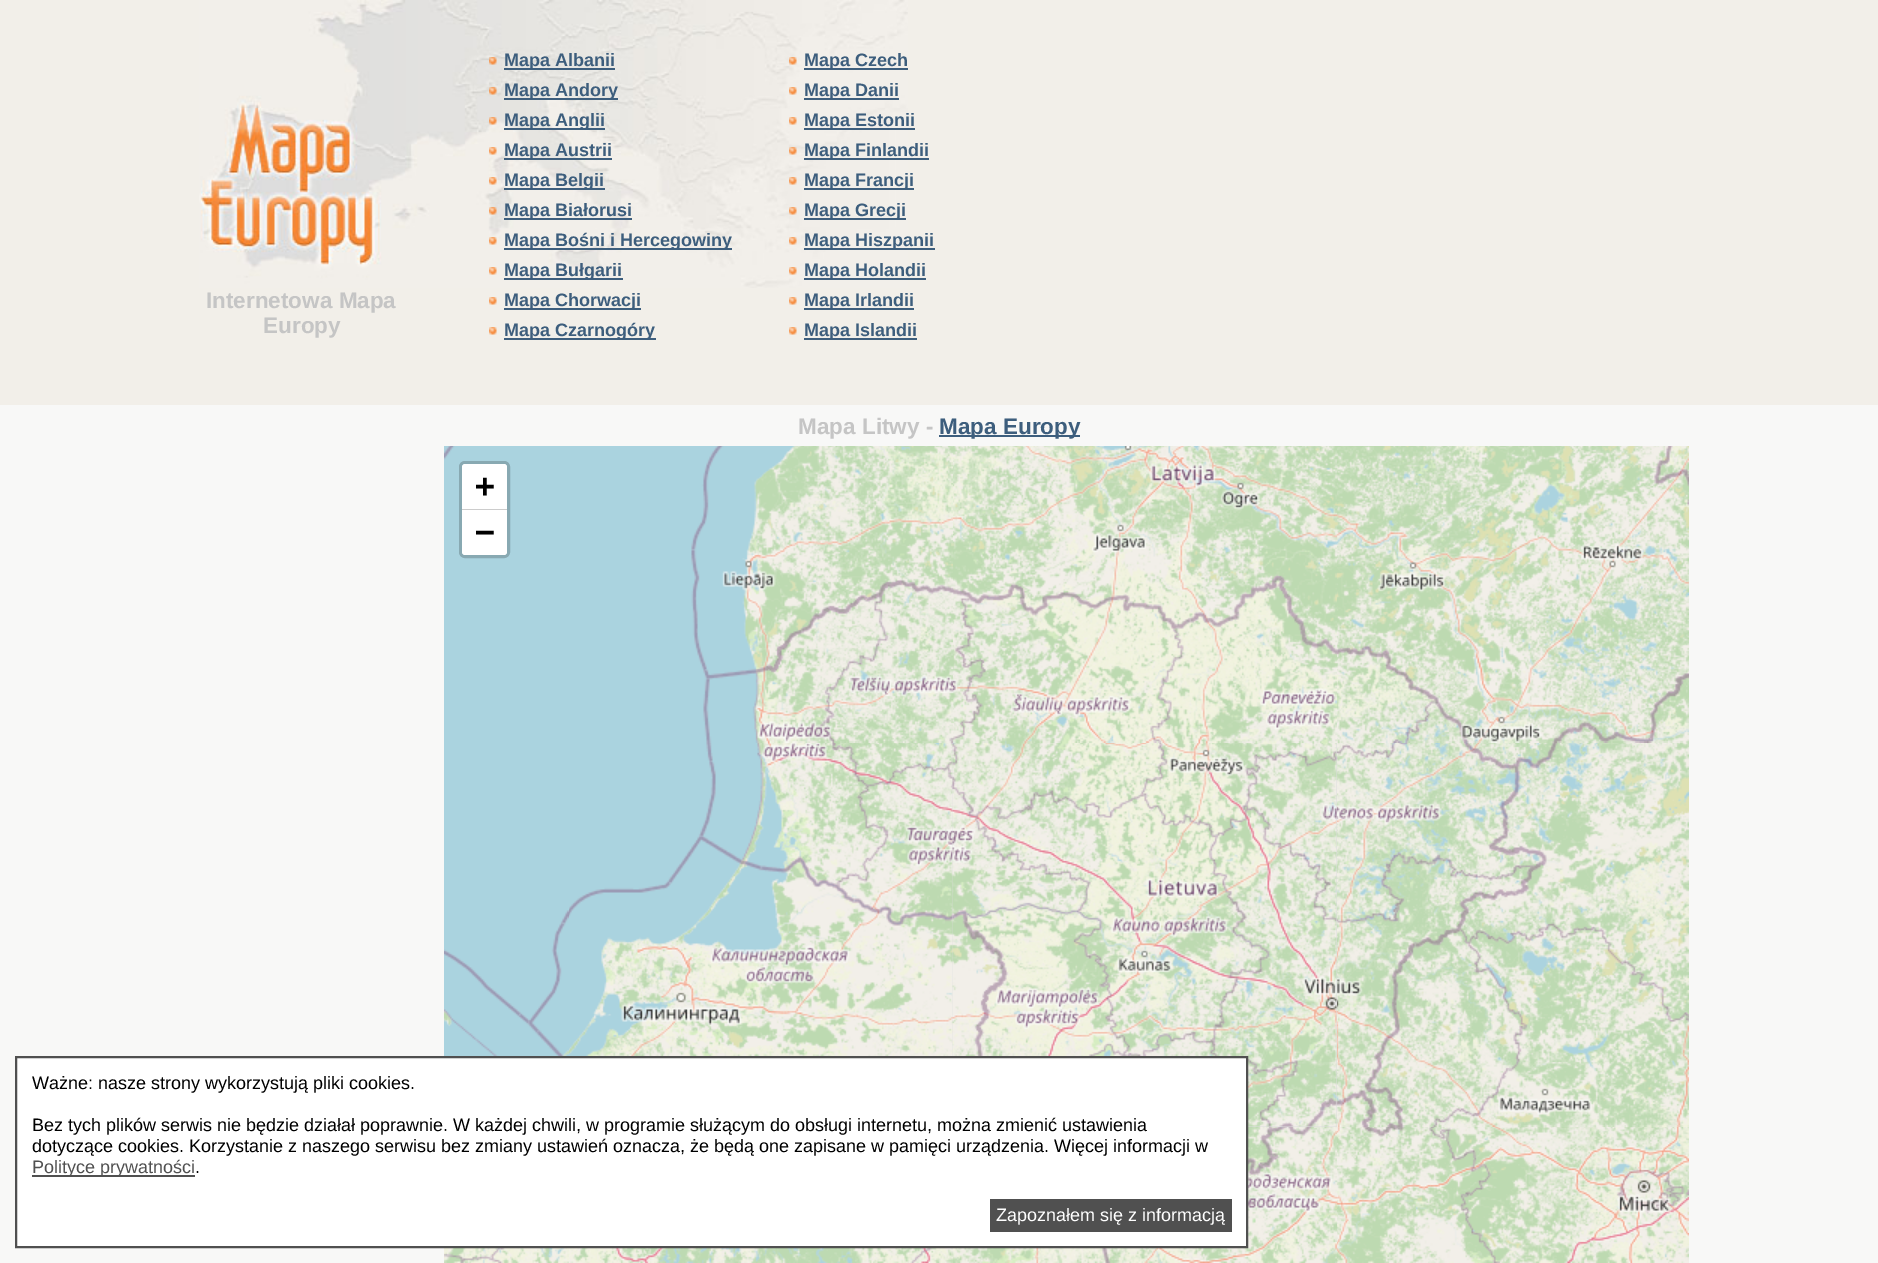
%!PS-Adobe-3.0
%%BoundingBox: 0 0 1878 1263
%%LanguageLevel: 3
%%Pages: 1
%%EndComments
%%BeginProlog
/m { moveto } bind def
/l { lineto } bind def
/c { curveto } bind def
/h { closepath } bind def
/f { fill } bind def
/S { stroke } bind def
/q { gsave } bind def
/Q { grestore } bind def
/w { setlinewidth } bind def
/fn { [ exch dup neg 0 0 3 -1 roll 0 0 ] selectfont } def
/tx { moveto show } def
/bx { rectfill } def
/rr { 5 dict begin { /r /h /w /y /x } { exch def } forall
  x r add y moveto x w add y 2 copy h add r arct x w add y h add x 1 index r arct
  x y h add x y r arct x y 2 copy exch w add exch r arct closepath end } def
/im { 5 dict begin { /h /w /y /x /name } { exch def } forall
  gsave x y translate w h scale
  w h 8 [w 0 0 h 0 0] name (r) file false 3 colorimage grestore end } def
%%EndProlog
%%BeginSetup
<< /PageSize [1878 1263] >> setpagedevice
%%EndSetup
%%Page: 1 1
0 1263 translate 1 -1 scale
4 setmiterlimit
0.949 0.937 0.914 setrgbcolor
0 0 1878 1263 bx
(image0.raw) 199 0 709 288 im
/LiberationSans-Bold 22.5 fn
0.773 setgray
(Internetowa Mapa) 206 308 tx
(Europy) 263 333 tx
(image1.raw) 489 57 8 8 im
0.239 0.369 0.49 setrgbcolor
504 68 111 2 bx
/LiberationSans-Bold 18 fn
(Mapa Albanii) 504 66 tx
(image2.raw) 489 87 8 8 im
504 98 114 2 bx
(Mapa Andory) 504 96 tx
(image3.raw) 489 117 8 8 im
504 128 101 2 bx
(Mapa Anglii) 504 126 tx
(image4.raw) 489 147 8 8 im
504 158 108 2 bx
(Mapa Austrii) 504 156 tx
(image5.raw) 489 177 8 8 im
504 188 101 2 bx
(Mapa Belgii) 504 186 tx
(image6.raw) 489 207 8 8 im
504 218 128 2 bx
(Mapa Białorusi) 504 216 tx
(image7.raw) 489 237 8 8 im
504 248 228 2 bx
(Mapa Bośni i Hercegowiny) 504 246 tx
(image4.raw) 489 267 8 8 im
504 278 119 2 bx
(Mapa Bułgarii) 504 276 tx
(image8.raw) 489 297 8 8 im
504 308 137 2 bx
(Mapa Chorwacji) 504 306 tx
(image8.raw) 489 327 8 8 im
504 338 152 2 bx
(Mapa Czarnogóry) 504 336 tx
(image9.raw) 789 57 8 8 im
804 68 104 2 bx
(Mapa Czech) 804 66 tx
(image10.raw) 789 87 8 8 im
804 98 95 2 bx
(Mapa Danii) 804 96 tx
(image11.raw) 789 117 8 8 im
804 128 111 2 bx
(Mapa Estonii) 804 126 tx
(image12.raw) 789 147 8 8 im
804 158 125 2 bx
(Mapa Finlandii) 804 156 tx
(image13.raw) 789 177 8 8 im
804 188 110 2 bx
(Mapa Francji) 804 186 tx
(image14.raw) 789 207 8 8 im
804 218 102 2 bx
(Mapa Grecji) 804 216 tx
(image15.raw) 789 237 8 8 im
804 248 131 2 bx
(Mapa Hiszpanii) 804 246 tx
(image10.raw) 789 267 8 8 im
804 278 122 2 bx
(Mapa Holandii) 804 276 tx
(image16.raw) 789 297 8 8 im
804 308 110 2 bx
(Mapa Irlandii) 804 306 tx
(image16.raw) 789 327 8 8 im
804 338 113 2 bx
(Mapa Islandii) 804 336 tx
0.973 0.973 0.969 setrgbcolor
0 405 1878 858 bx
/LiberationSans-Bold 22.5 fn
0.773 setgray
(Mapa Litwy -) 798 434 tx
0.239 0.369 0.49 setrgbcolor
939 435 141 2 bx
(Mapa Europy) 939 434 tx
0.867 setgray
952 743 385 384 bx
(image17.raw) 444 446 125 297 im
(image18.raw) 569 446 384 297 im
(image19.raw) 953 446 384 297 im
(image20.raw) 1337 446 352 297 im
(image21.raw) 444 743 125 313 im
(image22.raw) 569 743 384 313 im
(image23.raw) 952 743 385 384 im
(image24.raw) 1337 743 352 384 im
(image25.raw) 444 1248 125 15 im
(image26.raw) 569 1248 384 15 im
(image27.raw) 953 1127 384 136 im
(image28.raw) 1337 1127 352 136 im
0.533 0.663 0.698 setrgbcolor
3 w
460.5 462.5 48 94 4.5 rr S
1 setgray
465 464 m 504 464 l 505.5 464 507 465.5 507 467 c 507 510 l 462 510 l 462 467 l 462 465.5 463.5 464 465 464 c h f
0.8 setgray
462 509 45 1 bx
/DejaVuSansMono-Bold 33 fn
0 setgray
(+) 475 497 tx
1 setgray
462 510 m 507 510 l 507 552 l 507 553.5 505.5 555 504 555 c 465 555 l 463.5 555 462 553.5 462 552 c h f
0 setgray
(−) 475 543 tx
1 setgray
16 1057 m 1247 1057 l 1247 1247 l 16 1247 l h q f Q
0.314 setgray
2 w
S
/LiberationSans-Regular 18 fn
0 setgray
(Ważne: nasze strony wykorzystują pliki cookies.) 32 1089 tx
(Bez tych plików serwis nie będzie działał poprawnie. W każdej chwili, w programie służącym do obsługi internetu, można zmienić ustawienia) 32 1131 tx
(dotyczące cookies. Korzystanie z naszego serwisu bez zmiany ustawień oznacza, że będą one zapisane w pamięci urządzenia. Więcej informacji w) 32 1152 tx
0.314 setgray
32 1175 163 2 bx
(Polityce prywatności) 32 1173 tx
0 setgray
(.) 195 1173 tx
0.314 setgray
990 1199 242 33 bx
1 setgray
(Zapoznałem się z informacją) 996 1221 tx
showpage
%%EOF
